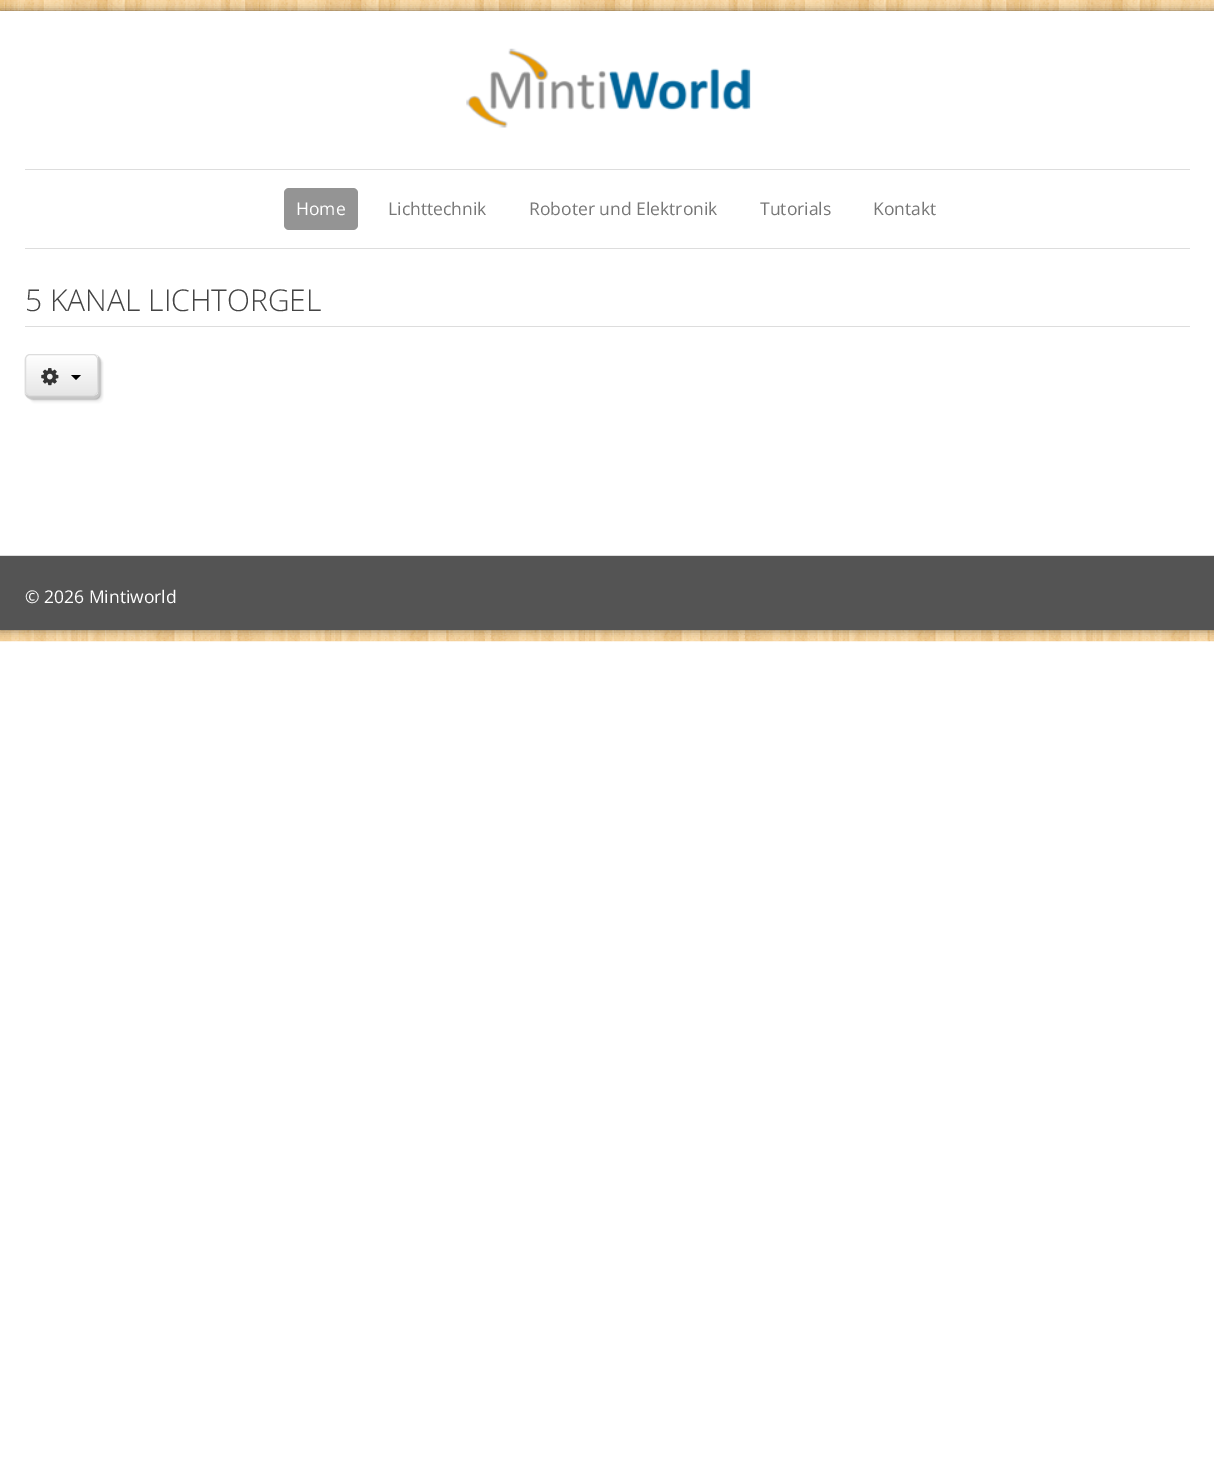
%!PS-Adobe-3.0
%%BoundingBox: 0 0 1214 1483
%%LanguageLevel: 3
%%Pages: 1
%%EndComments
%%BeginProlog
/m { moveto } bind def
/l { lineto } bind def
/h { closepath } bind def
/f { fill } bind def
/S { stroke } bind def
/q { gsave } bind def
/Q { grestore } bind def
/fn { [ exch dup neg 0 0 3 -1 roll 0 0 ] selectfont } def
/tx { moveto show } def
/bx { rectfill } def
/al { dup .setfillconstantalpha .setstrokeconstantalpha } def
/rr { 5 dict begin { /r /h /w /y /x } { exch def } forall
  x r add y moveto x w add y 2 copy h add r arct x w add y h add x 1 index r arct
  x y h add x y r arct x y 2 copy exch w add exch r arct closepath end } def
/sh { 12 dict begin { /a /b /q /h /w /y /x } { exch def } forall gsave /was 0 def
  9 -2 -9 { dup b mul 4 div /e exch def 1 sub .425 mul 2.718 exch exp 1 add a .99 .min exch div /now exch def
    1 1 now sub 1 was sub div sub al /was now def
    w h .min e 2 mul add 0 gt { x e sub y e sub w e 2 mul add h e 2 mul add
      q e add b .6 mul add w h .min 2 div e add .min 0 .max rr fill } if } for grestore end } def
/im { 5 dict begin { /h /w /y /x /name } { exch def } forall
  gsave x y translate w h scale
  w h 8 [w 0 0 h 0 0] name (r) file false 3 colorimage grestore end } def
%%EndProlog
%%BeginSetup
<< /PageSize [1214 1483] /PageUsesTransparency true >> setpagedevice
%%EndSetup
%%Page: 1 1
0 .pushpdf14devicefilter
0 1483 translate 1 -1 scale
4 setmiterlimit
1 setgray
0 0 1214 1483 bx
(image0.raw) 0 0 1214 642 im
0 setgray
0 11 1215 619 0 4 0.47 sh
1 setgray
0 11 1214 544 bx
(image1.raw) 466 48 285 80 im
0.867 setgray
25 169 1165 1 bx
25 248 1165 1 bx
0.58 setgray
284 188 74 42 5 rr f
/OpenSans-Regular 17.5 fn
1 setgray
(Home) 296 215 tx
0.467 setgray
(Lichttechnik) 388 215 tx
(Roboter und Elektronik) 529 215 tx
(Tutorials) 760 215 tx
(Kontakt) 873 215 tx
0.867 setgray
25 326 1165 1 bx
/OpenSans-Light 30 fn
0.267 setgray
(5 KANAL LICHTORGEL) 25 311 tx
0.859 setgray
30 360 73 43 5 1 0.3 sh
0.835 setgray
29 359 72 42 5 1 0.3 sh
0.824 setgray
30 358 73 42 5 1 0.3 sh
0.314 setgray
28 358 72 42 5 0.5 0.2 sh
29 356 72 43 5 0.5 0.2 sh
0.784 setgray
26 356 73 43 5 0.5 0.9 sh
28 355 72 43 5 0.5 0.9 sh
25 355 73 43 5 0.5 0.9 sh
q
25 354 73 42 5 rr clip newpath
q 25 355 m 98 355 l 98 395 l 25 395 l h clip newpath
<< /ShadingType 2 /ColorSpace /DeviceRGB /Coords [61 355 61 395] /Extend [true true] /Function << /FunctionType 2 /Domain [0 1] /C0 [1 1 1] /C1 [0.902 0.902 0.902] /N 1 >> >> shfill Q
Q
0.867 setgray
25.5 354.5 72 41 4.5 rr S
(image2.raw) 41 368 18 18 im
0 setgray
71 375 m 81 375 l 76 380 l h f
0.329 setgray
0 556 1214 74 bx
0.867 setgray
0 555 1214 1 bx
/OpenSans-Regular 17.5 fn
1 setgray
(© 2026 Mintiworld) 25 603 tx
.poppdf14devicefilter showpage
%%EOF
